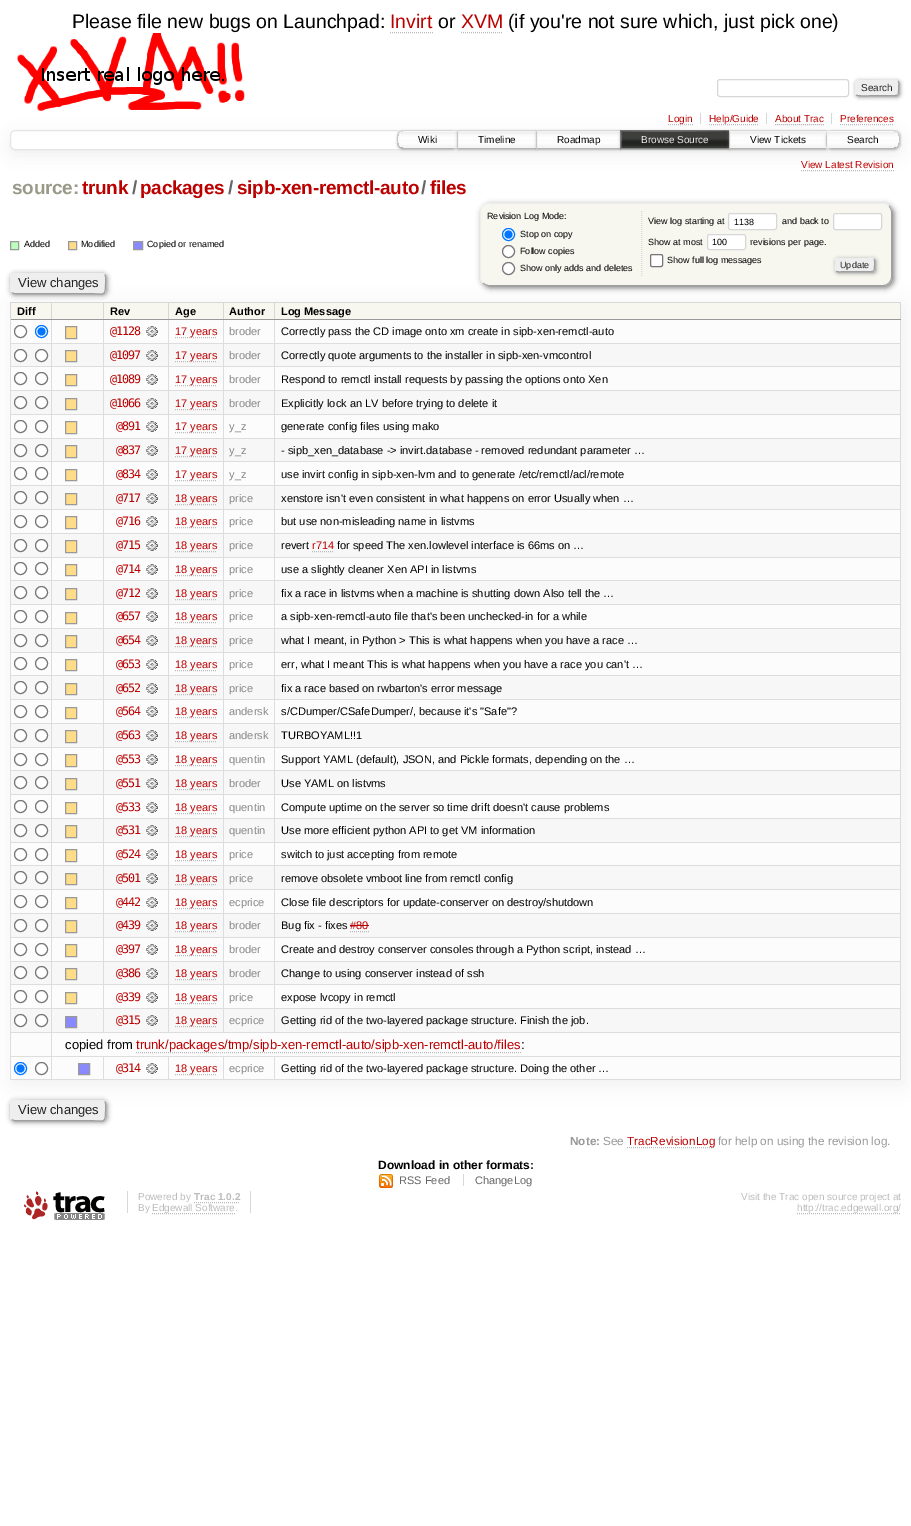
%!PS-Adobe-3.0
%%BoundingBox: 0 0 911 1526
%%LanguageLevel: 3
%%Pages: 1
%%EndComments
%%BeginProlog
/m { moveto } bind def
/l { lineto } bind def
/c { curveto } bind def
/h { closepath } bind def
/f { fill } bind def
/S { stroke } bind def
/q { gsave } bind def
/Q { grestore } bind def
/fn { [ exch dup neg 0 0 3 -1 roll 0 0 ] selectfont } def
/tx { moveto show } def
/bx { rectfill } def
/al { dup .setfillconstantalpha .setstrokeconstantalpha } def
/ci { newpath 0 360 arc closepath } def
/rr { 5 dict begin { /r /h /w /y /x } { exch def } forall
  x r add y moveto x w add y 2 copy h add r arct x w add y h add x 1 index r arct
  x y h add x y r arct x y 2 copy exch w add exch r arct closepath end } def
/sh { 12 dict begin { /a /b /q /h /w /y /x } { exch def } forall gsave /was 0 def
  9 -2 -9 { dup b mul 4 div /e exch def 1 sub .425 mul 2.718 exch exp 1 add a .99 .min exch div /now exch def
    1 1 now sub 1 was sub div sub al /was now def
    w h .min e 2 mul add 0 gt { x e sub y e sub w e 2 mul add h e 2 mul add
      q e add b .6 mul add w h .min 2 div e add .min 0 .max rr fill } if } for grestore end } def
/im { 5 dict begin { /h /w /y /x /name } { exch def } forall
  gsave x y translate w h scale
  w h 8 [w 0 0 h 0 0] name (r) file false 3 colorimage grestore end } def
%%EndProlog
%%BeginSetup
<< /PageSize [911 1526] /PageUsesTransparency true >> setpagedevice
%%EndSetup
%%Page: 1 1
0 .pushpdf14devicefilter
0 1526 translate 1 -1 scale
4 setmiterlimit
1 setgray
0 0 911 1526 bx
/LiberationSans-Regular 19.5 fn
0 setgray
(Please file new bugs on Launchpad:) 72 28 tx
0.733 0 0 setrgbcolor
(Invirt) 390 28 tx
0.733 setgray
[1 1] 0 setdash
390 32.5 m 433 32.5 l S
0 setgray
(or) 438 28 tx
0.733 0 0 setrgbcolor
(XVM) 461 28 tx
0.733 setgray
461 32.5 m 503 32.5 l S
0 setgray
(\(if you're not sure which, just pick one\)) 508 28 tx
(image0.raw) 17 33 228 78 im
0.843 setgray
[] 0 setdash
717.5 79.5 131 17 2.5 rr S
0.533 setgray
856 81 44 16 3 2 1 sh
0.933 setgray
855 80 44 16 3 rr f
0.624 setgray
898 81 m 899.5 83 898.5 86 898.5 88 c 898.5 96.5 899 95.5 889.5 95.5 c 877 95.5 l 874 95.5 858 96.5 856 95 c S
0.933 setgray
856 95 m 854.5 93 855.5 90 855.5 88 c 855.5 79.5 855 80.5 864.5 80.5 c 877 80.5 l 880 80.5 896 79.5 898 81 c S
/LiberationSans-Regular 10 fn
0.133 setgray
(Search) 861 91 tx
q
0 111 m 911 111 l 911 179 l 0 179 l h 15 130 m 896 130 l 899 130 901 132 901 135 c 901 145 l 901 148 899 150 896 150 c 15 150 l 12 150 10 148 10 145 c 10 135 l 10 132 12 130 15 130 c h eoclip newpath
0.933 setgray
10 135 891 20 5 7.5 1 sh
Q
0.843 setgray
700 113 1 11 bx
0.733 setgray
[1 1] 0 setdash
668 124.5 m 693 124.5 l S
0.733 0 0 setrgbcolor
(Login) 668 122 tx
0.843 setgray
766 113 1 11 bx
0.733 setgray
709 124.5 m 759 124.5 l S
0.733 0 0 setrgbcolor
(Help/Guide) 709 122 tx
0.843 setgray
831 113 1 11 bx
0.733 0 0 setrgbcolor
(About Trac) 775 122 tx
0.733 setgray
775 124.5 m 824 124.5 l S
0.733 0 0 setrgbcolor
(Preferences) 840 122 tx
0.733 setgray
840 124.5 m 894 124.5 l S
0.894 setgray
[] 0 setdash
10.5 130.5 890 19 4.5 rr S
1 setgray
402 130 m 458 130 l 458 149 l 402 149 l 399 149 397 147 397 144 c 397 135 l 397 132 399 130 402 130 c h f
(image1.raw) 397 132 60 17 im
0.894 setgray
402 130.5 m 457.5 130.5 l 457.5 148.5 l 402 148.5 l 399.5 148.5 397.5 146.5 397.5 144 c 397.5 135 l 397.5 132.5 399.5 130.5 402 130.5 c h S
q
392 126 m 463 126 l 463 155 l 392 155 l h 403 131 m 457 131 l 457 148 l 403 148 l 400 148 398 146 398 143 c 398 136 l 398 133 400 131 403 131 c h eoclip newpath
0.6 setgray
398 132 59 17 5 1.5 1 sh
Q
0 setgray
(Wiki) 418 143 tx
1 setgray
458 133 2 15 bx
(image2.raw) 458 132 78 16 im
0.894 setgray
457.5 130.5 79 18 rectstroke
q
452 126 m 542 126 l 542 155 l 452 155 l h 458 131 m 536 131 l 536 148 l 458 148 l h eoclip newpath
0.6 setgray
458 132 78 17 0 1.5 1 sh
Q
0 setgray
(Timeline) 478 143 tx
1 setgray
537 131 2 17 bx
(image3.raw) 537 132 83 16 im
0.894 setgray
536.5 130.5 84 18 rectstroke
q
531 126 m 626 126 l 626 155 l 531 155 l h 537 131 m 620 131 l 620 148 l 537 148 l h eoclip newpath
0.6 setgray
537 132 83 17 0 1.5 1 sh
Q
0 setgray
(Roadmap) 557 143 tx
0.4 setgray
620.5 130.5 109 18 rectstroke
0.6 setgray
621 132 108 17 0 1.5 1 sh
0 setgray
621 131 108 17 bx
(image4.raw) 621 131 108 17 im
0.933 setgray
(Browse Source) 641 143 tx
1 setgray
730 131 2 17 bx
(image5.raw) 730 132 96 16 im
0.894 setgray
729.5 130.5 97 18 rectstroke
q
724 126 m 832 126 l 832 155 l 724 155 l h 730 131 m 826 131 l 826 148 l 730 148 l h eoclip newpath
0.6 setgray
730 132 96 17 0 1.5 1 sh
Q
0 setgray
(View Tickets) 750 143 tx
1 setgray
826 130 m 895 130 l 898 130 900 132 900 135 c 900 144 l 900 147 898 149 895 149 c 826 149 l h f
(image6.raw) 827 132 73 17 im
0.894 setgray
826.5 130.5 m 895 130.5 l 897.5 130.5 899.5 132.5 899.5 135 c 899.5 144 l 899.5 146.5 897.5 148.5 895 148.5 c 826.5 148.5 l h S
q
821 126 m 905 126 l 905 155 l 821 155 l h 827 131 m 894 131 l 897 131 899 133 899 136 c 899 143 l 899 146 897 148 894 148 c 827 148 l h eoclip newpath
0.6 setgray
827 132 72 17 5 1.5 1 sh
Q
0 setgray
(Search) 847 143 tx
0.733 0 0 setrgbcolor
(View Latest Revision) 801 168 tx
0.733 setgray
[1 1] 0 setdash
801 170.5 m 894 170.5 l S
/LiberationSans-Bold 19 fn
0.6 0.6 0.533 setrgbcolor
12 194 m -0.3 0 (source:) ashow
0.733 0 0 setrgbcolor
82 194 m -0.3 0 (trunk) ashow
0.4 setgray
132 194 m -0.3 0 (/) ashow
0.733 0 0 setrgbcolor
140 194 m -0.3 0 (packages) ashow
0.4 setgray
228 194 m -0.3 0 (/) ashow
0.733 0 0 setrgbcolor
237 194 m -0.3 0 (sipb-xen-remctl-auto) ashow
0.4 setgray
421 194 m -0.3 0 (/) ashow
0.733 0 0 setrgbcolor
430 194 m -0.3 0 (files) ashow
0.733 1 0.733 setrgbcolor
10.5 241.5 m 18.5 241.5 l 18.5 249.5 l 10.5 249.5 l h q f Q
0.6 setgray
[] 0 setdash
S
/LiberationSans-Regular 9 fn
0 setgray
(Added) 24 247 tx
1 0.867 0.533 setrgbcolor
68.5 241.5 m 76.5 241.5 l 76.5 249.5 l 68.5 249.5 l h q f Q
0.6 setgray
S
0 setgray
(Modified) 81 247 tx
0.533 0.533 1 setrgbcolor
133.5 241.5 m 142.5 241.5 l 142.5 249.5 l 133.5 249.5 l h q f Q
0.6 setgray
S
0 setgray
(Copied or renamed) 147 247 tx
0.467 setgray
482 205 412 83 9 3 1 sh
0.933 setgray
13 306 891 778 0 10 1 sh
0.969 0.969 0.941 setrgbcolor
480 203 412 83 9 rr f
0.624 setgray
889 206 m 890.5 207.5 891.5 209.5 891.5 212 c 891.5 277 l 891.5 279.5 890.5 281.5 889 283 c 887.5 284.5 885.5 285.5 883 285.5 c 489 285.5 l 486.5 285.5 484.5 284.5 483 283 c S
0.933 setgray
483 283 m 481.5 281.5 480.5 279.5 480.5 277 c 480.5 212 l 480.5 209.5 481.5 207.5 483 206 c 484.5 204.5 486.5 203.5 489 203.5 c 883 203.5 l 885.5 203.5 887.5 204.5 889 206 c S
0.843 setgray
[1 1] 0 setdash
641.5 211 m 641.5 277 l S
0 setgray
(Revision Log Mode:) 487 219 tx
1 setgray
508.5 234.5 6 ci q f Q
0 0.459 1 setrgbcolor
[] 0 setdash
S
508.5 234.5 4 ci f
0 setgray
(Stop on copy) 520 237 tx
1 setgray
508.5 251.5 6 ci q f Q
0.463 setgray
S
0 setgray
(Follow copies) 520 254 tx
1 setgray
508.5 268.5 6 ci q f Q
0.463 setgray
S
0 setgray
(Show only adds and deletes) 520 271 tx
(View log starting at) 648 224 tx
1 setgray
728.5 213.5 48 16 2 rr q f Q
0.843 setgray
S
0 setgray
(1138) 734 225 tx
(and back to) 782 224 tx
1 setgray
833.5 213.5 48 16 2 rr q f Q
0.843 setgray
S
0 setgray
(Show at most) 648 245 tx
1 setgray
707.5 234.5 38 15 2 rr q f Q
0.843 setgray
S
0 setgray
(100) 712 245 tx
(revisions per page.) 750 245 tx
1 setgray
650.5 254.5 12 12 1.5 rr q f Q
0.463 setgray
S
0 setgray
(Show full log messages) 667 263 tx
0.533 setgray
836 259 40 14 2.5 2 1 sh
0.933 setgray
835 258 40 14 2.5 rr f
0.624 setgray
874 259 m 875 260.5 874.5 263.5 874.5 265 c 874.5 272.5 874.5 271.5 866.5 271.5 c 843.5 271.5 l 843 271.5 837.5 272.5 836 271 c S
0.933 setgray
836 271 m 835 269.5 835.5 266.5 835.5 265 c 835.5 257.5 835.5 258.5 843.5 258.5 c 866.5 258.5 l 867 258.5 872.5 257.5 874 259 c S
0.133 setgray
(Update) 840 268 tx
0.969 0.969 0.941 setrgbcolor
11 303 889 16 bx
0.843 setgray
274 302 627 1 bx
0.867 setgray
10 343 891 1 bx
10 366 891 1 bx
10 390 891 1 bx
10 414 891 1 bx
10 438 891 1 bx
10 461 891 1 bx
10 485 891 1 bx
10 509 891 1 bx
10 533 891 1 bx
10 557 891 1 bx
10 580 891 1 bx
10 604 891 1 bx
10 628 891 1 bx
10 652 891 1 bx
10 675 891 1 bx
10 699 891 1 bx
10 723 891 1 bx
10 747 891 1 bx
10 770 891 1 bx
10 794 891 1 bx
10 818 891 1 bx
10 842 891 1 bx
10 865 891 1 bx
10 889 891 1 bx
10 913 891 1 bx
10 937 891 1 bx
10 961 891 1 bx
10 984 891 1 bx
10 1008 891 1 bx
10 1032 891 1 bx
10 1056 891 1 bx
900 319 1 761 bx
0.843 setgray
900 302 1 18 bx
0.988 setgray
11 320 889 23 bx
0.969 setgray
16 344 884 22 bx
0.988 setgray
11 367 889 23 bx
0.969 setgray
16 391 884 23 bx
0.988 setgray
11 415 889 23 bx
0.969 setgray
16 439 884 22 bx
0.988 setgray
11 462 889 23 bx
0.969 setgray
16 486 884 23 bx
0.988 setgray
11 510 889 23 bx
0.969 setgray
16 534 884 23 bx
0.988 setgray
11 558 889 22 bx
0.969 setgray
16 581 884 23 bx
0.988 setgray
11 605 889 23 bx
0.969 setgray
16 629 884 23 bx
0.988 setgray
11 653 889 22 bx
0.969 setgray
16 676 884 23 bx
0.988 setgray
11 700 889 23 bx
0.969 setgray
16 724 884 23 bx
0.988 setgray
11 748 889 22 bx
0.969 setgray
16 771 884 23 bx
0.988 setgray
11 795 889 23 bx
0.969 setgray
16 819 884 23 bx
0.988 setgray
11 843 889 22 bx
0.969 setgray
16 866 884 23 bx
0.988 setgray
11 890 889 23 bx
0.969 setgray
16 914 884 23 bx
0.988 setgray
11 938 889 23 bx
0.969 setgray
16 962 884 22 bx
0.988 setgray
11 985 889 23 bx
0.969 setgray
16 1009 884 23 bx
0.867 setgray
274 319 1 714 bx
0.6 setgray
274 319 627 1 bx
0.843 setgray
274 302 1 18 bx
223 302 52 1 bx
0.867 setgray
223 319 1 714 bx
0.6 setgray
223 319 52 1 bx
0.843 setgray
223 302 1 18 bx
168 302 56 1 bx
0.867 setgray
168 319 1 714 bx
0.6 setgray
168 319 56 1 bx
0.843 setgray
168 302 1 18 bx
103 302 66 1 bx
0.867 setgray
103 319 1 714 bx
0.6 setgray
103 319 66 1 bx
0.843 setgray
103 302 1 18 bx
51 302 53 1 bx
0.988 setgray
11 1033 889 23 bx
11 1057 889 22 bx
0.867 setgray
274 1079 627 1 bx
274 1056 1 24 bx
223 1079 52 1 bx
223 1056 1 24 bx
168 1079 56 1 bx
168 1056 1 24 bx
103 1079 66 1 bx
103 1056 1 24 bx
51 1079 53 1 bx
51 319 1 761 bx
0.6 setgray
51 319 53 1 bx
0.843 setgray
51 302 1 18 bx
10 302 42 1 bx
0.867 setgray
10 1079 42 1 bx
10 319 1 761 bx
0.6 setgray
10 319 42 1 bx
0.843 setgray
10 302 1 18 bx
0.533 setgray
11 274 96 21 4 2.5 1 sh
0.933 setgray
10 273 96 21 4 rr f
0.624 setgray
104.5 274.5 m 106.5 276.5 105.5 281 105.5 283.5 c 105.5 297.5 104.5 293.5 87.5 293.5 c 14 293.5 l 11.5 292.5 l S
0.933 setgray
11.5 292.5 m 9.5 290.5 10.5 286 10.5 283.5 c 10.5 269.5 11.5 273.5 28.5 273.5 c 102 273.5 l 104.5 274.5 l S
/LiberationSans-Regular 13 fn
0.133 setgray
(View changes) 18 287 tx
/LiberationSans-Bold 11 fn
0 setgray
(Diff) 17 315 tx
(Rev) 110 315 tx
(Age) 175 315 tx
(Author) 229 315 tx
(Log Message) 281 315 tx
1 setgray
20.5 331.5 6 ci q f Q
0.463 setgray
S
1 setgray
41.5 331.5 6 ci q f Q
0 0.459 1 setrgbcolor
S
41.5 331.5 4 ci f
1 0.867 0.533 setrgbcolor
65.5 326.5 m 76.5 326.5 l 76.5 338.5 l 65.5 338.5 l h q f Q
0.6 setgray
S
/DejaVuSansMono-Regular 11.75 fn
0.733 0 0 setrgbcolor
110 335 m -1 0 (@1128) ashow
(image7.raw) 146 326 12 11 im
0.733 setgray
[1 1] 0 setdash
175 337.5 m 217 337.5 l S
/LiberationSans-Regular 11.05 fn
0.733 0 0 setrgbcolor
(17 years) 175 335 tx
0.533 setgray
(broder) 229 335 tx
0 setgray
(Correctly pass the CD image onto xm create in sipb-xen-remctl-auto) 281 335 tx
1 setgray
20.5 355.5 6 ci q f Q
0.463 setgray
[] 0 setdash
S
1 setgray
41.5 355.5 6 ci q f Q
0.463 setgray
S
1 0.867 0.533 setrgbcolor
65.5 350.5 m 76.5 350.5 l 76.5 361.5 l 65.5 361.5 l h q f Q
0.6 setgray
S
/DejaVuSansMono-Regular 11.75 fn
0.733 0 0 setrgbcolor
110 359 m -1 0 (@1097) ashow
(image8.raw) 146 350 12 11 im
0.733 setgray
[1 1] 0 setdash
175 361.5 m 217 361.5 l S
/LiberationSans-Regular 11.05 fn
0.733 0 0 setrgbcolor
(17 years) 175 359 tx
0.533 setgray
(broder) 229 359 tx
0 setgray
(Correctly quote arguments to the installer in sipb-xen-vmcontrol) 281 359 tx
1 setgray
20.5 378.5 6 ci q f Q
0.463 setgray
[] 0 setdash
S
1 setgray
41.5 378.5 6 ci q f Q
0.463 setgray
S
1 0.867 0.533 setrgbcolor
65.5 374.5 m 76.5 374.5 l 76.5 385.5 l 65.5 385.5 l h q f Q
0.6 setgray
S
/DejaVuSansMono-Regular 11.75 fn
0.733 0 0 setrgbcolor
110 383 m -1 0 (@1089) ashow
(image7.raw) 146 374 12 11 im
0.733 setgray
[1 1] 0 setdash
175 385.5 m 217 385.5 l S
/LiberationSans-Regular 11.05 fn
0.733 0 0 setrgbcolor
(17 years) 175 383 tx
0.533 setgray
(broder) 229 383 tx
0 setgray
(Respond to remctl install requests by passing the options onto Xen) 281 383 tx
1 setgray
20.5 402.5 6 ci q f Q
0.463 setgray
[] 0 setdash
S
1 setgray
41.5 402.5 6 ci q f Q
0.463 setgray
S
1 0.867 0.533 setrgbcolor
65.5 398.5 m 76.5 398.5 l 76.5 409.5 l 65.5 409.5 l h q f Q
0.6 setgray
S
/DejaVuSansMono-Regular 11.75 fn
0.733 0 0 setrgbcolor
110 407 m -1 0 (@1066) ashow
(image8.raw) 146 398 12 11 im
0.733 setgray
[1 1] 0 setdash
175 409.5 m 217 409.5 l S
/LiberationSans-Regular 11.05 fn
0.733 0 0 setrgbcolor
(17 years) 175 407 tx
0.533 setgray
(broder) 229 407 tx
0 setgray
(Explicitly lock an LV before trying to delete it) 281 407 tx
1 setgray
20.5 426.5 6 ci q f Q
0.463 setgray
[] 0 setdash
S
1 setgray
41.5 426.5 6 ci q f Q
0.463 setgray
S
1 0.867 0.533 setrgbcolor
65.5 421.5 m 76.5 421.5 l 76.5 433.5 l 65.5 433.5 l h q f Q
0.6 setgray
S
/DejaVuSansMono-Regular 11.75 fn
0.733 0 0 setrgbcolor
116 430 m -1 0 (@891) ashow
(image7.raw) 146 421 12 11 im
0.733 setgray
[1 1] 0 setdash
175 432.5 m 217 432.5 l S
/LiberationSans-Regular 11.05 fn
0.733 0 0 setrgbcolor
(17 years) 175 430 tx
0.533 setgray
(y_z) 229 430 tx
0 setgray
(generate config files using mako) 281 430 tx
1 setgray
20.5 450.5 6 ci q f Q
0.463 setgray
[] 0 setdash
S
1 setgray
41.5 450.5 6 ci q f Q
0.463 setgray
S
1 0.867 0.533 setrgbcolor
65.5 445.5 m 76.5 445.5 l 76.5 457.5 l 65.5 457.5 l h q f Q
0.6 setgray
S
/DejaVuSansMono-Regular 11.75 fn
0.733 0 0 setrgbcolor
116 454 m -1 0 (@837) ashow
(image8.raw) 146 445 12 11 im
0.733 setgray
[1 1] 0 setdash
175 456.5 m 217 456.5 l S
/LiberationSans-Regular 11.05 fn
0.733 0 0 setrgbcolor
(17 years) 175 454 tx
0.533 setgray
(y_z) 229 454 tx
0 setgray
(- sipb_xen_database -> invirt.database - removed redundant parameter …) 281 454 tx
1 setgray
20.5 473.5 6 ci q f Q
0.463 setgray
[] 0 setdash
S
1 setgray
41.5 473.5 6 ci q f Q
0.463 setgray
S
1 0.867 0.533 setrgbcolor
65.5 469.5 m 76.5 469.5 l 76.5 480.5 l 65.5 480.5 l h q f Q
0.6 setgray
S
/DejaVuSansMono-Regular 11.75 fn
0.733 0 0 setrgbcolor
116 478 m -1 0 (@834) ashow
(image7.raw) 146 469 12 11 im
0.733 setgray
[1 1] 0 setdash
175 480.5 m 217 480.5 l S
/LiberationSans-Regular 11.05 fn
0.733 0 0 setrgbcolor
(17 years) 175 478 tx
0.533 setgray
(y_z) 229 478 tx
0 setgray
(use invirt config in sipb-xen-lvm and to generate /etc/remctl/acl/remote) 281 478 tx
1 setgray
20.5 497.5 6 ci q f Q
0.463 setgray
[] 0 setdash
S
1 setgray
41.5 497.5 6 ci q f Q
0.463 setgray
S
1 0.867 0.533 setrgbcolor
65.5 493.5 m 76.5 493.5 l 76.5 504.5 l 65.5 504.5 l h q f Q
0.6 setgray
S
/DejaVuSansMono-Regular 11.75 fn
0.733 0 0 setrgbcolor
116 502 m -1 0 (@717) ashow
(image8.raw) 146 493 12 11 im
0.733 setgray
[1 1] 0 setdash
175 504.5 m 217 504.5 l S
/LiberationSans-Regular 11.05 fn
0.733 0 0 setrgbcolor
(18 years) 175 502 tx
0.533 setgray
(price) 229 502 tx
0 setgray
(xenstore isn't even consistent in what happens on error Usually when …) 281 502 tx
1 setgray
20.5 521.5 6 ci q f Q
0.463 setgray
[] 0 setdash
S
1 setgray
41.5 521.5 6 ci q f Q
0.463 setgray
S
1 0.867 0.533 setrgbcolor
65.5 516.5 m 76.5 516.5 l 76.5 528.5 l 65.5 528.5 l h q f Q
0.6 setgray
S
/DejaVuSansMono-Regular 11.75 fn
0.733 0 0 setrgbcolor
116 525 m -1 0 (@716) ashow
(image7.raw) 146 516 12 11 im
0.733 setgray
[1 1] 0 setdash
175 527.5 m 217 527.5 l S
/LiberationSans-Regular 11.05 fn
0.733 0 0 setrgbcolor
(18 years) 175 525 tx
0.533 setgray
(price) 229 525 tx
0 setgray
(but use non-misleading name in listvms) 281 525 tx
1 setgray
20.5 545.5 6 ci q f Q
0.463 setgray
[] 0 setdash
S
1 setgray
41.5 545.5 6 ci q f Q
0.463 setgray
S
1 0.867 0.533 setrgbcolor
65.5 540.5 m 76.5 540.5 l 76.5 552.5 l 65.5 552.5 l h q f Q
0.6 setgray
S
/DejaVuSansMono-Regular 11.75 fn
0.733 0 0 setrgbcolor
116 549 m -1 0 (@715) ashow
(image8.raw) 146 540 12 11 im
0.733 setgray
[1 1] 0 setdash
175 551.5 m 217 551.5 l S
/LiberationSans-Regular 11.05 fn
0.733 0 0 setrgbcolor
(18 years) 175 549 tx
0.533 setgray
(price) 229 549 tx
0 setgray
(revert) 281 549 tx
0.733 0 0 setrgbcolor
(r714) 312 549 tx
0.733 setgray
312 551.5 m 334 551.5 l S
0 setgray
(for speed The xen.lowlevel interface is 66ms on …) 337 549 tx
1 setgray
20.5 568.5 6 ci q f Q
0.463 setgray
[] 0 setdash
S
1 setgray
41.5 568.5 6 ci q f Q
0.463 setgray
S
1 0.867 0.533 setrgbcolor
65.5 564.5 m 76.5 564.5 l 76.5 575.5 l 65.5 575.5 l h q f Q
0.6 setgray
S
/DejaVuSansMono-Regular 11.75 fn
0.733 0 0 setrgbcolor
116 573 m -1 0 (@714) ashow
(image7.raw) 146 564 12 11 im
0.733 setgray
[1 1] 0 setdash
175 575.5 m 217 575.5 l S
/LiberationSans-Regular 11.05 fn
0.733 0 0 setrgbcolor
(18 years) 175 573 tx
0.533 setgray
(price) 229 573 tx
0 setgray
(use a slightly cleaner Xen API in listvms) 281 573 tx
1 setgray
20.5 592.5 6 ci q f Q
0.463 setgray
[] 0 setdash
S
1 setgray
41.5 592.5 6 ci q f Q
0.463 setgray
S
1 0.867 0.533 setrgbcolor
65.5 588.5 m 76.5 588.5 l 76.5 599.5 l 65.5 599.5 l h q f Q
0.6 setgray
S
/DejaVuSansMono-Regular 11.75 fn
0.733 0 0 setrgbcolor
116 597 m -1 0 (@712) ashow
(image8.raw) 146 588 12 11 im
0.733 setgray
[1 1] 0 setdash
175 599.5 m 217 599.5 l S
/LiberationSans-Regular 11.05 fn
0.733 0 0 setrgbcolor
(18 years) 175 597 tx
0.533 setgray
(price) 229 597 tx
0 setgray
(fix a race in listvms when a machine is shutting down Also tell the …) 281 597 tx
1 setgray
20.5 616.5 6 ci q f Q
0.463 setgray
[] 0 setdash
S
1 setgray
41.5 616.5 6 ci q f Q
0.463 setgray
S
1 0.867 0.533 setrgbcolor
65.5 612.5 m 76.5 612.5 l 76.5 623.5 l 65.5 623.5 l h q f Q
0.6 setgray
S
/DejaVuSansMono-Regular 11.75 fn
0.733 0 0 setrgbcolor
116 620 m -1 0 (@657) ashow
(image7.raw) 146 611 12 11 im
0.733 setgray
[1 1] 0 setdash
175 622.5 m 217 622.5 l S
/LiberationSans-Regular 11.05 fn
0.733 0 0 setrgbcolor
(18 years) 175 620 tx
0.533 setgray
(price) 229 620 tx
0 setgray
(a sipb-xen-remctl-auto file that's been unchecked-in for a while) 281 620 tx
1 setgray
20.5 640.5 6 ci q f Q
0.463 setgray
[] 0 setdash
S
1 setgray
41.5 640.5 6 ci q f Q
0.463 setgray
S
1 0.867 0.533 setrgbcolor
65.5 635.5 m 76.5 635.5 l 76.5 647.5 l 65.5 647.5 l h q f Q
0.6 setgray
S
/DejaVuSansMono-Regular 11.75 fn
0.733 0 0 setrgbcolor
116 644 m -1 0 (@654) ashow
(image8.raw) 146 635 12 11 im
0.733 setgray
[1 1] 0 setdash
175 646.5 m 217 646.5 l S
/LiberationSans-Regular 11.05 fn
0.733 0 0 setrgbcolor
(18 years) 175 644 tx
0.533 setgray
(price) 229 644 tx
0 setgray
(what I meant, in Python > This is what happens when you have a race …) 281 644 tx
1 setgray
20.5 663.5 6 ci q f Q
0.463 setgray
[] 0 setdash
S
1 setgray
41.5 663.5 6 ci q f Q
0.463 setgray
S
1 0.867 0.533 setrgbcolor
65.5 659.5 m 76.5 659.5 l 76.5 670.5 l 65.5 670.5 l h q f Q
0.6 setgray
S
/DejaVuSansMono-Regular 11.75 fn
0.733 0 0 setrgbcolor
116 668 m -1 0 (@653) ashow
(image7.raw) 146 659 12 11 im
0.733 setgray
[1 1] 0 setdash
175 670.5 m 217 670.5 l S
/LiberationSans-Regular 11.05 fn
0.733 0 0 setrgbcolor
(18 years) 175 668 tx
0.533 setgray
(price) 229 668 tx
0 setgray
(err, what I meant This is what happens when you have a race you can't …) 281 668 tx
1 setgray
20.5 687.5 6 ci q f Q
0.463 setgray
[] 0 setdash
S
1 setgray
41.5 687.5 6 ci q f Q
0.463 setgray
S
1 0.867 0.533 setrgbcolor
65.5 683.5 m 76.5 683.5 l 76.5 694.5 l 65.5 694.5 l h q f Q
0.6 setgray
S
/DejaVuSansMono-Regular 11.75 fn
0.733 0 0 setrgbcolor
116 692 m -1 0 (@652) ashow
(image8.raw) 146 683 12 11 im
0.733 setgray
[1 1] 0 setdash
175 694.5 m 217 694.5 l S
/LiberationSans-Regular 11.05 fn
0.733 0 0 setrgbcolor
(18 years) 175 692 tx
0.533 setgray
(price) 229 692 tx
0 setgray
(fix a race based on rwbarton's error message) 281 692 tx
1 setgray
20.5 711.5 6 ci q f Q
0.463 setgray
[] 0 setdash
S
1 setgray
41.5 711.5 6 ci q f Q
0.463 setgray
S
1 0.867 0.533 setrgbcolor
65.5 707.5 m 76.5 707.5 l 76.5 718.5 l 65.5 718.5 l h q f Q
0.6 setgray
S
/DejaVuSansMono-Regular 11.75 fn
0.733 0 0 setrgbcolor
116 715 m -1 0 (@564) ashow
(image7.raw) 146 706 12 11 im
0.733 setgray
[1 1] 0 setdash
175 717.5 m 217 717.5 l S
/LiberationSans-Regular 11.05 fn
0.733 0 0 setrgbcolor
(18 years) 175 715 tx
0.533 setgray
(andersk) 229 715 tx
0 setgray
(s/CDumper/CSafeDumper/, because it's "Safe"?) 281 715 tx
1 setgray
20.5 735.5 6 ci q f Q
0.463 setgray
[] 0 setdash
S
1 setgray
41.5 735.5 6 ci q f Q
0.463 setgray
S
1 0.867 0.533 setrgbcolor
65.5 730.5 m 76.5 730.5 l 76.5 742.5 l 65.5 742.5 l h q f Q
0.6 setgray
S
/DejaVuSansMono-Regular 11.75 fn
0.733 0 0 setrgbcolor
116 739 m -1 0 (@563) ashow
(image8.raw) 146 730 12 11 im
0.733 setgray
[1 1] 0 setdash
175 741.5 m 217 741.5 l S
/LiberationSans-Regular 11.05 fn
0.733 0 0 setrgbcolor
(18 years) 175 739 tx
0.533 setgray
(andersk) 229 739 tx
0 setgray
(TURBOYAML!!1) 281 739 tx
1 setgray
20.5 759.5 6 ci q f Q
0.463 setgray
[] 0 setdash
S
1 setgray
41.5 759.5 6 ci q f Q
0.463 setgray
S
1 0.867 0.533 setrgbcolor
65.5 754.5 m 76.5 754.5 l 76.5 766.5 l 65.5 766.5 l h q f Q
0.6 setgray
S
/DejaVuSansMono-Regular 11.75 fn
0.733 0 0 setrgbcolor
116 763 m -1 0 (@553) ashow
(image7.raw) 146 754 12 11 im
0.733 setgray
[1 1] 0 setdash
175 765.5 m 217 765.5 l S
/LiberationSans-Regular 11.05 fn
0.733 0 0 setrgbcolor
(18 years) 175 763 tx
0.533 setgray
(quentin) 229 763 tx
0 setgray
(Support YAML \(default\), JSON, and Pickle formats, depending on the …) 281 763 tx
1 setgray
20.5 782.5 6 ci q f Q
0.463 setgray
[] 0 setdash
S
1 setgray
41.5 782.5 6 ci q f Q
0.463 setgray
S
1 0.867 0.533 setrgbcolor
65.5 778.5 m 76.5 778.5 l 76.5 789.5 l 65.5 789.5 l h q f Q
0.6 setgray
S
/DejaVuSansMono-Regular 11.75 fn
0.733 0 0 setrgbcolor
116 787 m -1 0 (@551) ashow
(image8.raw) 146 778 12 11 im
0.733 setgray
[1 1] 0 setdash
175 789.5 m 217 789.5 l S
/LiberationSans-Regular 11.05 fn
0.733 0 0 setrgbcolor
(18 years) 175 787 tx
0.533 setgray
(broder) 229 787 tx
0 setgray
(Use YAML on listvms) 281 787 tx
1 setgray
20.5 806.5 6 ci q f Q
0.463 setgray
[] 0 setdash
S
1 setgray
41.5 806.5 6 ci q f Q
0.463 setgray
S
1 0.867 0.533 setrgbcolor
65.5 802.5 m 76.5 802.5 l 76.5 813.5 l 65.5 813.5 l h q f Q
0.6 setgray
S
/DejaVuSansMono-Regular 11.75 fn
0.733 0 0 setrgbcolor
116 811 m -1 0 (@533) ashow
(image7.raw) 146 802 12 11 im
0.733 setgray
[1 1] 0 setdash
175 813.5 m 217 813.5 l S
/LiberationSans-Regular 11.05 fn
0.733 0 0 setrgbcolor
(18 years) 175 811 tx
0.533 setgray
(quentin) 229 811 tx
0 setgray
(Compute uptime on the server so time drift doesn't cause problems) 281 811 tx
1 setgray
20.5 830.5 6 ci q f Q
0.463 setgray
[] 0 setdash
S
1 setgray
41.5 830.5 6 ci q f Q
0.463 setgray
S
1 0.867 0.533 setrgbcolor
65.5 825.5 m 76.5 825.5 l 76.5 837.5 l 65.5 837.5 l h q f Q
0.6 setgray
S
/DejaVuSansMono-Regular 11.75 fn
0.733 0 0 setrgbcolor
116 834 m -1 0 (@531) ashow
(image8.raw) 146 825 12 11 im
0.733 setgray
[1 1] 0 setdash
175 836.5 m 217 836.5 l S
/LiberationSans-Regular 11.05 fn
0.733 0 0 setrgbcolor
(18 years) 175 834 tx
0.533 setgray
(quentin) 229 834 tx
0 setgray
(Use more efficient python API to get VM information) 281 834 tx
1 setgray
20.5 854.5 6 ci q f Q
0.463 setgray
[] 0 setdash
S
1 setgray
41.5 854.5 6 ci q f Q
0.463 setgray
S
1 0.867 0.533 setrgbcolor
65.5 849.5 m 76.5 849.5 l 76.5 861.5 l 65.5 861.5 l h q f Q
0.6 setgray
S
/DejaVuSansMono-Regular 11.75 fn
0.733 0 0 setrgbcolor
116 858 m -1 0 (@524) ashow
(image7.raw) 146 849 12 11 im
0.733 setgray
[1 1] 0 setdash
175 860.5 m 217 860.5 l S
/LiberationSans-Regular 11.05 fn
0.733 0 0 setrgbcolor
(18 years) 175 858 tx
0.533 setgray
(price) 229 858 tx
0 setgray
(switch to just accepting from remote) 281 858 tx
1 setgray
20.5 877.5 6 ci q f Q
0.463 setgray
[] 0 setdash
S
1 setgray
41.5 877.5 6 ci q f Q
0.463 setgray
S
1 0.867 0.533 setrgbcolor
65.5 873.5 m 76.5 873.5 l 76.5 884.5 l 65.5 884.5 l h q f Q
0.6 setgray
S
/DejaVuSansMono-Regular 11.75 fn
0.733 0 0 setrgbcolor
116 882 m -1 0 (@501) ashow
(image8.raw) 146 873 12 11 im
0.733 setgray
[1 1] 0 setdash
175 884.5 m 217 884.5 l S
/LiberationSans-Regular 11.05 fn
0.733 0 0 setrgbcolor
(18 years) 175 882 tx
0.533 setgray
(price) 229 882 tx
0 setgray
(remove obsolete vmboot line from remctl config) 281 882 tx
1 setgray
20.5 901.5 6 ci q f Q
0.463 setgray
[] 0 setdash
S
1 setgray
41.5 901.5 6 ci q f Q
0.463 setgray
S
1 0.867 0.533 setrgbcolor
65.5 897.5 m 76.5 897.5 l 76.5 908.5 l 65.5 908.5 l h q f Q
0.6 setgray
S
/DejaVuSansMono-Regular 11.75 fn
0.733 0 0 setrgbcolor
116 906 m -1 0 (@442) ashow
(image7.raw) 146 897 12 11 im
0.733 setgray
[1 1] 0 setdash
175 908.5 m 217 908.5 l S
/LiberationSans-Regular 11.05 fn
0.733 0 0 setrgbcolor
(18 years) 175 906 tx
0.533 setgray
(ecprice) 229 906 tx
0 setgray
(Close file descriptors for update-conserver on destroy/shutdown) 281 906 tx
1 setgray
20.5 925.5 6 ci q f Q
0.463 setgray
[] 0 setdash
S
1 setgray
41.5 925.5 6 ci q f Q
0.463 setgray
S
1 0.867 0.533 setrgbcolor
65.5 920.5 m 76.5 920.5 l 76.5 932.5 l 65.5 932.5 l h q f Q
0.6 setgray
S
/DejaVuSansMono-Regular 11.75 fn
0.733 0 0 setrgbcolor
116 929 m -1 0 (@439) ashow
(image8.raw) 146 920 12 11 im
0.733 setgray
[1 1] 0 setdash
175 931.5 m 217 931.5 l S
/LiberationSans-Regular 11.05 fn
0.733 0 0 setrgbcolor
(18 years) 175 929 tx
0.533 setgray
(broder) 229 929 tx
0 setgray
(Bug fix - fixes) 281 929 tx
0.733 0 0 setrgbcolor
(#80) 350 929 tx
0.733 setgray
350 931.5 m 369 931.5 l S
0.733 0 0 setrgbcolor
350 925 19 1 bx
1 setgray
20.5 949.5 6 ci q f Q
0.463 setgray
[] 0 setdash
S
1 setgray
41.5 949.5 6 ci q f Q
0.463 setgray
S
1 0.867 0.533 setrgbcolor
65.5 944.5 m 76.5 944.5 l 76.5 956.5 l 65.5 956.5 l h q f Q
0.6 setgray
S
/DejaVuSansMono-Regular 11.75 fn
0.733 0 0 setrgbcolor
116 953 m -1 0 (@397) ashow
(image7.raw) 146 944 12 11 im
0.733 setgray
[1 1] 0 setdash
175 955.5 m 217 955.5 l S
/LiberationSans-Regular 11.05 fn
0.733 0 0 setrgbcolor
(18 years) 175 953 tx
0.533 setgray
(broder) 229 953 tx
0 setgray
(Create and destroy conserver consoles through a Python script, instead …) 281 953 tx
1 setgray
20.5 972.5 6 ci q f Q
0.463 setgray
[] 0 setdash
S
1 setgray
41.5 972.5 6 ci q f Q
0.463 setgray
S
1 0.867 0.533 setrgbcolor
65.5 968.5 m 76.5 968.5 l 76.5 979.5 l 65.5 979.5 l h q f Q
0.6 setgray
S
/DejaVuSansMono-Regular 11.75 fn
0.733 0 0 setrgbcolor
116 977 m -1 0 (@386) ashow
(image8.raw) 146 968 12 11 im
0.733 setgray
[1 1] 0 setdash
175 979.5 m 217 979.5 l S
/LiberationSans-Regular 11.05 fn
0.733 0 0 setrgbcolor
(18 years) 175 977 tx
0.533 setgray
(broder) 229 977 tx
0 setgray
(Change to using conserver instead of ssh) 281 977 tx
1 setgray
20.5 996.5 6 ci q f Q
0.463 setgray
[] 0 setdash
S
1 setgray
41.5 996.5 6 ci q f Q
0.463 setgray
S
1 0.867 0.533 setrgbcolor
65.5 992.5 m 76.5 992.5 l 76.5 1003.5 l 65.5 1003.5 l h q f Q
0.6 setgray
S
/DejaVuSansMono-Regular 11.75 fn
0.733 0 0 setrgbcolor
116 1001 m -1 0 (@339) ashow
(image7.raw) 146 992 12 11 im
0.733 setgray
[1 1] 0 setdash
175 1003.5 m 217 1003.5 l S
/LiberationSans-Regular 11.05 fn
0.733 0 0 setrgbcolor
(18 years) 175 1001 tx
0.533 setgray
(price) 229 1001 tx
0 setgray
(expose lvcopy in remctl) 281 1001 tx
1 setgray
20.5 1020.5 6 ci q f Q
0.463 setgray
[] 0 setdash
S
1 setgray
41.5 1020.5 6 ci q f Q
0.463 setgray
S
0.533 0.533 1 setrgbcolor
65.5 1016.5 m 76.5 1016.5 l 76.5 1027.5 l 65.5 1027.5 l h q f Q
0.6 setgray
S
/DejaVuSansMono-Regular 11.75 fn
0.733 0 0 setrgbcolor
116 1024 m -1 0 (@315) ashow
(image8.raw) 146 1015 12 11 im
0.733 setgray
[1 1] 0 setdash
175 1026.5 m 217 1026.5 l S
/LiberationSans-Regular 11.05 fn
0.733 0 0 setrgbcolor
(18 years) 175 1024 tx
0.533 setgray
(ecprice) 229 1024 tx
0 setgray
(Getting rid of the two-layered package structure. Finish the job.) 281 1024 tx
/LiberationSans-Regular 13 fn
(copied from) 65 1049 tx
0.733 0 0 setrgbcolor
(trunk/packages/tmp/sipb-xen-remctl-auto/sipb-xen-remctl-auto/files) 136 1049 tx
0.733 setgray
136 1052.5 m 521 1052.5 l S
0 setgray
(:) 521 1049 tx
1 setgray
20.5 1068.5 6 ci q f Q
0 0.459 1 setrgbcolor
[] 0 setdash
S
20.5 1068.5 4 ci f
1 setgray
41.5 1068.5 6 ci q f Q
0.463 setgray
S
0.533 0.533 1 setrgbcolor
78.5 1063.5 m 89.5 1063.5 l 89.5 1074.5 l 78.5 1074.5 l h q f Q
0.6 setgray
S
/DejaVuSansMono-Regular 11.75 fn
0.733 0 0 setrgbcolor
116 1072 m -1 0 (@314) ashow
(image7.raw) 146 1063 12 11 im
0.733 setgray
[1 1] 0 setdash
175 1074.5 m 217 1074.5 l S
/LiberationSans-Regular 11.05 fn
0.733 0 0 setrgbcolor
(18 years) 175 1072 tx
0.533 setgray
(ecprice) 229 1072 tx
0 setgray
(Getting rid of the two-layered package structure. Doing the other …) 281 1072 tx
0.533 setgray
11 1101 96 21 4 2.5 1 sh
0.933 setgray
10 1100 96 21 4 rr f
0.624 setgray
[] 0 setdash
104.5 1101.5 m 106.5 1103.5 105.5 1108 105.5 1110.5 c 105.5 1124.5 104.5 1120.5 87.5 1120.5 c 14 1120.5 l 11.5 1119.5 l S
0.933 setgray
11.5 1119.5 m 9.5 1117.5 10.5 1113 10.5 1110.5 c 10.5 1096.5 11.5 1100.5 28.5 1100.5 c 102 1100.5 l 104.5 1101.5 l S
/LiberationSans-Regular 13 fn
0.133 setgray
(View changes) 18 1114 tx
/LiberationSans-Bold 11.75 fn
0.6 setgray
(Note:) 570 1145 tx
/LiberationSans-Regular 11.75 fn
(See) 603 1145 tx
0.733 setgray
[1 1] 0 setdash
627 1147.5 m 715 1147.5 l S
0.733 0 0 setrgbcolor
(TracRevisionLog) 627 1145 tx
0.6 setgray
(for help on using the revision log.) 718 1145 tx
/LiberationSans-Bold 12 fn
0 setgray
(Download in other formats:) 378 1169 tx
(image9.raw) 379 1174 14 14 im
/LiberationSans-Regular 11 fn
0.4 setgray
(RSS Feed) 399 1184 tx
0.843 setgray
463 1174 1 12 bx
0.4 setgray
(ChangeLog) 475 1184 tx
(image10.raw) 24 1191 81 29 im
0.843 setgray
250 1191 1 22 bx
127 1191 1 22 bx
/LiberationSans-Regular 10 fn
0.733 setgray
(Powered by) 138 1200 tx
/LiberationSans-Bold 10 fn
(Trac 1.0.2) 194 1200 tx
194 1202.5 m 240 1202.5 l S
/LiberationSans-Regular 10 fn
(By) 138 1211 tx
152 1213.5 m 235 1213.5 l S
(Edgewall Software.) 152 1211 tx
(Visit the Trac open source project at) 741 1200 tx
797 1213.5 m 901 1213.5 l S
(http://trac.edgewall.org/) 797 1211 tx
.poppdf14devicefilter showpage
%%EOF
